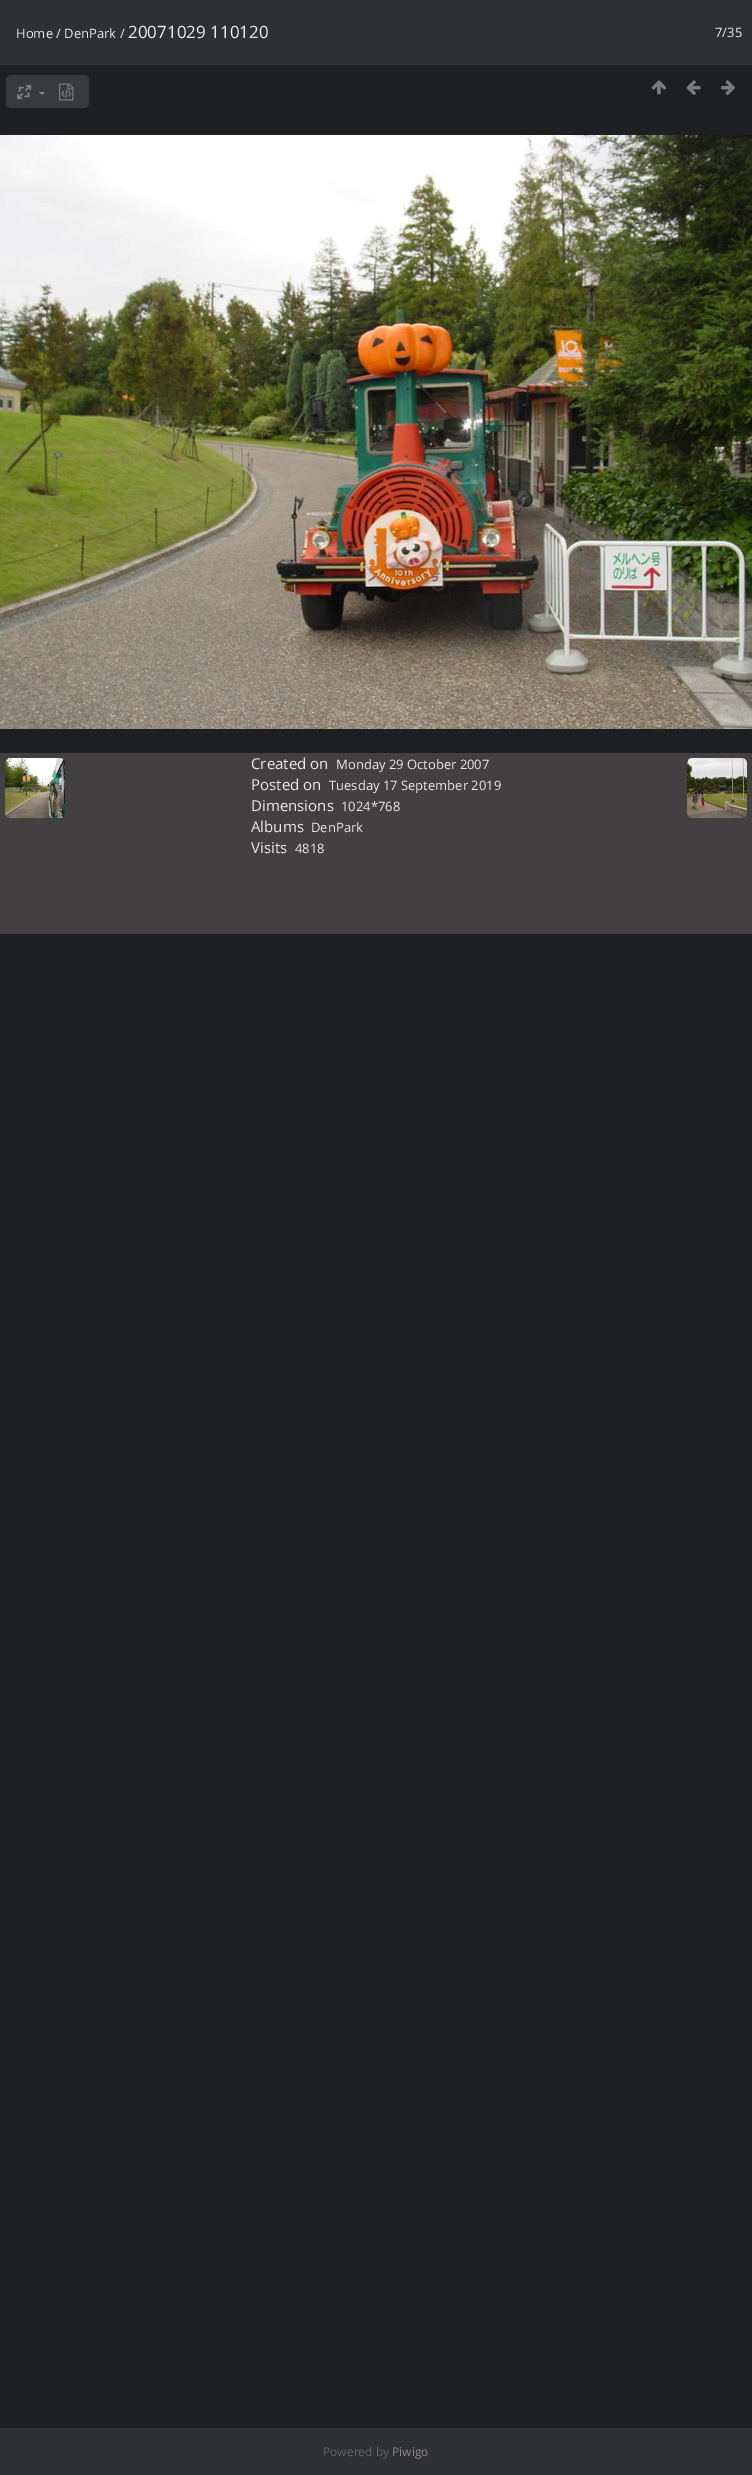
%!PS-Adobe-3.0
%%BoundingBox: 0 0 752 2475
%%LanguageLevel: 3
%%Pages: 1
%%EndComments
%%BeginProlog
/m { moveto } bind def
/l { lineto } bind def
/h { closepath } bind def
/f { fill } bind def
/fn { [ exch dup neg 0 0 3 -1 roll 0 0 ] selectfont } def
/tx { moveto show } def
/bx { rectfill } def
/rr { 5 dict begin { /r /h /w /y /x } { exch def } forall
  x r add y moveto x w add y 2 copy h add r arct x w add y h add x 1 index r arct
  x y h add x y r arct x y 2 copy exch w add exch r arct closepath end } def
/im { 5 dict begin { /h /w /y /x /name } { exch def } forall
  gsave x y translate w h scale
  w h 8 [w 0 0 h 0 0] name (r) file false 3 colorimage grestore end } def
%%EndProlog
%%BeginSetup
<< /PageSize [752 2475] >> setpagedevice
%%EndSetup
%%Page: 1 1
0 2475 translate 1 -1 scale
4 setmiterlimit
0.118 0.122 0.137 setrgbcolor
0 0 752 2475 bx
0.184 0.188 0.196 setrgbcolor
0 0 752 65 bx
/OpenSans-Regular 13 fn
0.918 0.918 0.914 setrgbcolor
(Home / DenPark /) 16 38 tx
/OpenSans-Regular 17 fn
(20071029 110120) 128 38 tx
/OpenSans-Regular 13 fn
(7/35) 715 37 tx
0.224 0.227 0.239 setrgbcolor
6 75 83 33 5 rr f
(image0.raw) 17 84 15 16 im
0.518 0.522 0.533 setrgbcolor
39 92 m 45 92 l 42 95 l h f
(image1.raw) 59 83 15 18 im
(image2.raw) 651 80 16 15 im
(image3.raw) 686 80 15 15 im
(image4.raw) 721 80 14 15 im
(image5.raw) 0 135 752 594 im
0.259 0.251 0.251 setrgbcolor
0 753 752 181 bx
/OpenSans-Regular 15 fn
0.918 0.918 0.914 setrgbcolor
(Created on) 251 769 tx
/OpenSans-Regular 13 fn
(Monday 29 October 2007) 336 769 tx
/OpenSans-Regular 15 fn
(Posted on) 251 790 tx
/OpenSans-Regular 13 fn
(Tuesday 17 September 2019) 329 790 tx
/OpenSans-Regular 15 fn
(Dimensions) 251 811 tx
/OpenSans-Regular 13 fn
(1024*768) 341 811 tx
/OpenSans-Regular 15 fn
(Albums) 251 832 tx
/OpenSans-Regular 13 fn
(DenPark) 311 832 tx
/OpenSans-Regular 15 fn
(Visits) 251 853 tx
/OpenSans-Regular 13 fn
(4818) 295 853 tx
(image6.raw) 5 758 60 60 im
(image7.raw) 687 758 60 60 im
0.184 0.188 0.196 setrgbcolor
0 2428 752 47 bx
/OpenSans-Regular 12 fn
0.4 setgray
(Powered by) 323 2456 tx
0.553 0.545 0.545 setrgbcolor
(Piwigo) 392 2456 tx
showpage
%%EOF
